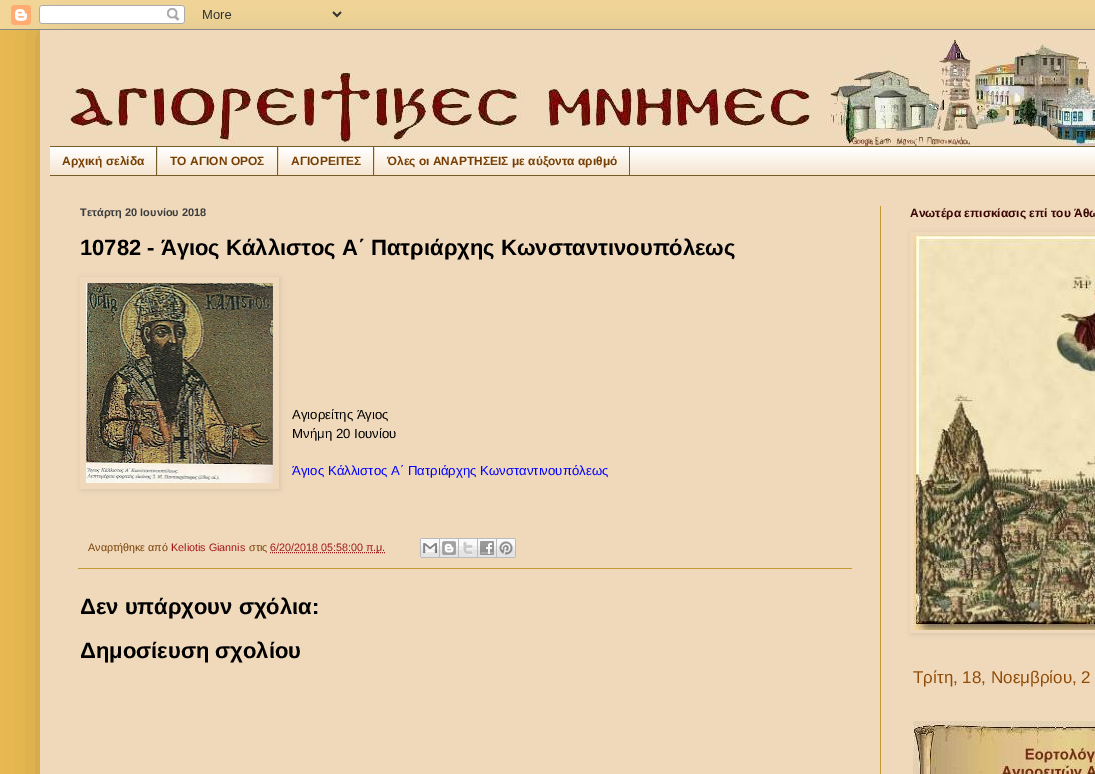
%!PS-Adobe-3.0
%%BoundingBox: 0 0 1095 774
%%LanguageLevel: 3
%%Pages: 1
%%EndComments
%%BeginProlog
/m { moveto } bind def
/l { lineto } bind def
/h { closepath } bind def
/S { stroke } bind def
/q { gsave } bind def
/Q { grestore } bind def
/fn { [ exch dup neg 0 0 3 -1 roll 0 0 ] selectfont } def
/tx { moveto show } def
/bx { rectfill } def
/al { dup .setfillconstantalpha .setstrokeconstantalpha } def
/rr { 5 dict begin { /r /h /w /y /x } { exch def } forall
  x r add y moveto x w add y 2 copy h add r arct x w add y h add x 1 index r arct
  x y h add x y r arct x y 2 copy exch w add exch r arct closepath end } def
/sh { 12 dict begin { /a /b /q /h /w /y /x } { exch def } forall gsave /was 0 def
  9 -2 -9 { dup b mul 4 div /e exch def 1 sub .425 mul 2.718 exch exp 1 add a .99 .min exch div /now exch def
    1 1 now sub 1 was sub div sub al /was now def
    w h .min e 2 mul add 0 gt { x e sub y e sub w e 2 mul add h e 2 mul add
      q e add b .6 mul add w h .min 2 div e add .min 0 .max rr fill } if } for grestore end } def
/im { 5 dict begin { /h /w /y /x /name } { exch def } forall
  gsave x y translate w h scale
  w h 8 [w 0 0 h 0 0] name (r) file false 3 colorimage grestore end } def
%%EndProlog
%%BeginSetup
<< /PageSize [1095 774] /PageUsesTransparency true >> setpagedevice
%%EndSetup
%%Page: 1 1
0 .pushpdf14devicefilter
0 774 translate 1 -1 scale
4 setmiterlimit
0.914 0.729 0.322 setrgbcolor
0 0 1095 774 bx
0 setgray
40 30 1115 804 0 20 0.15 sh
(image0.raw) 0 0 1095 30 im
0.941 0.851 0.733 setrgbcolor
40 30 1055 744 bx
(image1.raw) 66 40 1029 106 im
(image2.raw) 50 147 1045 28 im
0.455 0.365 0.161 setrgbcolor
50 146 1045 1 bx
50 175 1045 1 bx
156 147 1 28 bx
/LiberationSans-Bold 12 fn
0.471 0.247 0.016 setrgbcolor
(Αρχική σελίδα) 62 165 tx
0.455 0.365 0.161 setrgbcolor
277 147 1 28 bx
0.941 0.851 0.733 setrgbcolor
157 147 1 28 bx
0.471 0.247 0.016 setrgbcolor
(ΤΟ ΑΓΙΟΝ ΟΡΟΣ) 170 165 tx
0.455 0.365 0.161 setrgbcolor
373 147 1 28 bx
0.941 0.851 0.733 setrgbcolor
278 147 1 28 bx
0.471 0.247 0.016 setrgbcolor
(ΑΓΙΟΡΕΙΤΕΣ) 291 165 tx
0.455 0.365 0.161 setrgbcolor
629 147 1 28 bx
0.941 0.851 0.733 setrgbcolor
374 147 1 28 bx
0.471 0.247 0.016 setrgbcolor
(Όλες οι ΑΝΑΡΤΗΣΕΙΣ με αύξοντα αριθμό) 387 165 tx
0.757 0.604 0.204 setrgbcolor
880 206 1 568 bx
/LiberationSans-Bold 11 fn
0.239 setgray
(Τετάρτη 20 Ιουνίου 2018) 80 216 tx
/LiberationSans-Bold 22 fn
0 setgray
(10782 - Άγιος Κάλλιστος Α΄ Πατριάρχης Κωνσταντινουπόλεως) 80 255 tx
q
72 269 m 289 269 l 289 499 l 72 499 l h 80 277 m 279 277 l 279 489 l 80 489 l h eoclip newpath
81 278 199 212 0 2.5 0.1 sh
Q
(image3.raw) 86 283 187 200 im
/LiberationSans-Regular 13.2 fn
(Αγιορείτης Άγιος) 292 419 tx
(Μνήμη 20 Ιουνίου) 292 438 tx
0 0 1 setrgbcolor
(Άγιος Κάλλιστος Α΄ Πατριάρχης Κωνσταντινουπόλεως) 292 475 tx
0.757 0.604 0.204 setrgbcolor
78 568 774 1 bx
/LiberationSans-Regular 10.75 fn
0.471 0.247 0.016 setrgbcolor
(Αναρτήθηκε από) 88 551 tx
0.631 0.098 0.098 setrgbcolor
(Keliotis Giannis) 171 551 tx
0.471 0.247 0.016 setrgbcolor
(στις) 249 551 tx
0.631 0.098 0.098 setrgbcolor
[1 1] 0 setdash
270 552.5 m 386 552.5 l S
(6/20/2018 05:58:00 π.μ.) 270 551 tx
(image4.raw) 420 538 20 20 im
(image5.raw) 440 538 19 20 im
(image6.raw) 459 538 19 20 im
(image7.raw) 478 538 19 20 im
(image8.raw) 497 538 19 20 im
/LiberationSans-Bold 22 fn
0 setgray
(Δεν υπάρχουν σχόλια:) 80 614 tx
(Δημοσίευση σχολίου) 80 658 tx
/LiberationSans-Bold 12 fn
0.224 0.016 0.016 setrgbcolor
(Ανωτέρα επισκίασις επί του Άθω) 910 217 tx
q
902 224 m 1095 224 l 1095 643 l 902 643 l h 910 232 m 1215 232 l 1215 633 l 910 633 l h eoclip newpath
0 setgray
911 233 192 401 0 2.5 0.1 sh
Q
(image9.raw) 913 235 182 395 im
/LiberationSans-Regular 17 fn
0.565 0.298 0.027 setrgbcolor
(Τρίτη, 18, Νοεμβρίου, 2) 913 683 tx
(image10.raw) 913 721 182 53 im
.poppdf14devicefilter showpage
%%EOF
